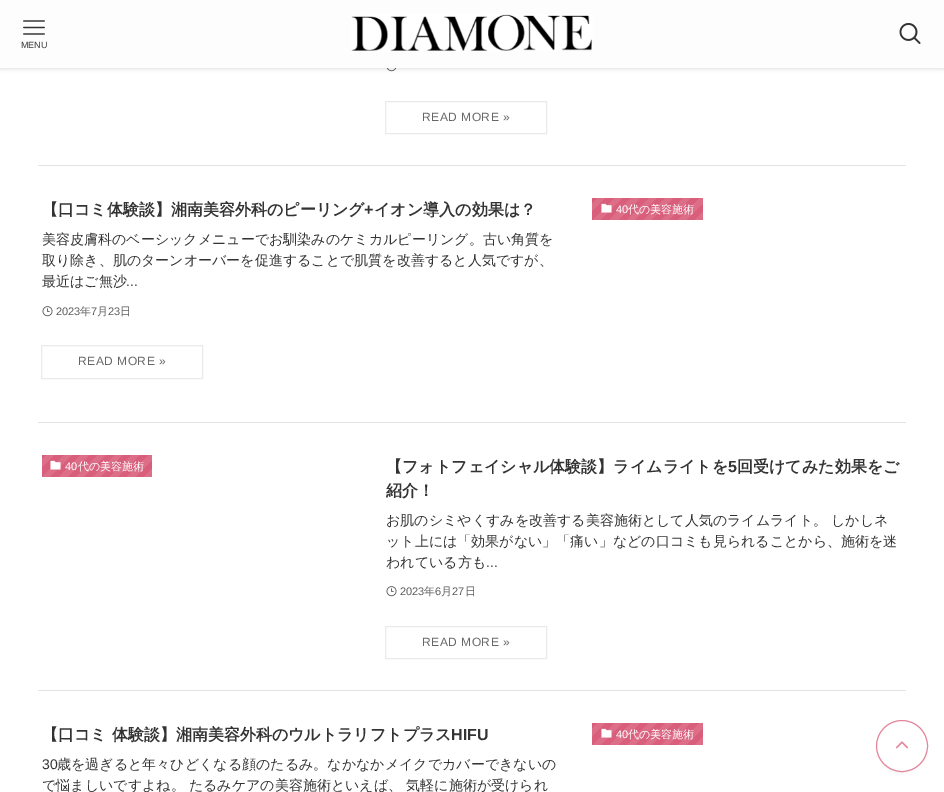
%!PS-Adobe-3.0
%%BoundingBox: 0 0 944 792
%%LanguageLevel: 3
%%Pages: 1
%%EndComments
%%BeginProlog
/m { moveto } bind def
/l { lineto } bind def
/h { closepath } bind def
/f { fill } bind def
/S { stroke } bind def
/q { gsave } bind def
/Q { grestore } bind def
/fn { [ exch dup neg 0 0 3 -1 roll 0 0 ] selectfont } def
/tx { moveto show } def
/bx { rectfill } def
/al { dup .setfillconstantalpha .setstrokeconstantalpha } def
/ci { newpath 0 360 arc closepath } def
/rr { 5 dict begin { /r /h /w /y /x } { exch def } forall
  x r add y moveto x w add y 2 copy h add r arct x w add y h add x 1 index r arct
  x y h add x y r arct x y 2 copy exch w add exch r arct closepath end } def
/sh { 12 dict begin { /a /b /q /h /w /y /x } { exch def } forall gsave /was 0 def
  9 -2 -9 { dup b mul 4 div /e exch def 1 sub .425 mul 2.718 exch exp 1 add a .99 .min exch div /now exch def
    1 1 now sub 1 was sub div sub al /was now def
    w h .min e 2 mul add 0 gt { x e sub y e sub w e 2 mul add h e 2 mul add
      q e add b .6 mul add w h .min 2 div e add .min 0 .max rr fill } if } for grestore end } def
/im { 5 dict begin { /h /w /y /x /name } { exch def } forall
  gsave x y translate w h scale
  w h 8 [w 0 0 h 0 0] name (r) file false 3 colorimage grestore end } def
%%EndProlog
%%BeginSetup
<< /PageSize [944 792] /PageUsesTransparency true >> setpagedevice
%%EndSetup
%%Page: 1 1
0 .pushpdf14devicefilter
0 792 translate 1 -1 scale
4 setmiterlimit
1 setgray
0 0 944 792 bx
(image3.raw) 386 68 11 4 im
0 setgray
0 1 944 68 0 2 0.12 sh
0.992 setgray
0 0 944 68 bx
(image0.raw) 351 14 242 37 im
(image1.raw) 899 23 22 21 im
(image2.raw) 23 20 22 15 im
/LiberationSans-Regular 9 fn
0.2 setgray
(MENU) 21 48 tx
0.89 setgray
38 165 868 1 bx
0.918 setgray
385.5 101.5 161 32 rectstroke
/LiberationSans-Regular 12 fn
0.4 setgray
422 121 m 0.5 0 (READ MORE ») ashow
0.89 setgray
38 422 868 1 bx
/WenQuanYiZenHei-Bold 16 fn
0.2 setgray
(【口コミ体験談】湘南美容外科のピーリング) 42 215 tx
/LiberationSans-Bold 16 fn
(+) 364 215 tx
/WenQuanYiZenHei-Bold 16 fn
(イオン導入の効果は？) 374 215 tx
/WenQuanYiZenHei-Medium 14 fn
(美容皮膚科のベーシックメニューでお馴染みのケミカルピーリング。古い角質を) 42 244 tx
(取り除き、肌のターンオーバーを促進することで肌質を改善すると人気ですが、) 42 265 tx
(最近はご無沙) 42 286 tx
/LiberationSans-Regular 14 fn
(...) 126 286 tx
(image4.raw) 42 306 11 11 im
/LiberationSans-Regular 11 fn
0.361 setgray
(2023) 56 315 tx
/WenQuanYiZenHei-Medium 11 fn
(年) 80 315 tx
/LiberationSans-Regular 11 fn
(7) 91 315 tx
/WenQuanYiZenHei-Medium 11 fn
(月) 97 315 tx
/LiberationSans-Regular 11 fn
(23) 108 315 tx
/WenQuanYiZenHei-Medium 11 fn
(日) 120 315 tx
0.918 setgray
41.5 345.5 161 33 rectstroke
/LiberationSans-Regular 12 fn
0.4 setgray
78 365 m 0.5 0 (READ MORE ») ashow
q 592 198 m 703 198 l 703 220 l 592 220 l h clip newpath
<< /ShadingType 2 /ColorSpace /DeviceRGB /Coords [681 242 613 174] /Extend [true true] /Function << /FunctionType 3 /Domain [0 1] /Functions [<< /FunctionType 2 /Domain [0 1] /C0 [0.863 0.431 0.533] /C1 [0.863 0.431 0.533] /N 1 >> << /FunctionType 2 /Domain [0 1] /C0 [0.847 0.369 0.482] /C1 [0.847 0.369 0.482] /N 1 >> << /FunctionType 2 /Domain [0 1] /C0 [0.863 0.431 0.533] /C1 [0.863 0.431 0.533] /N 1 >> << /FunctionType 2 /Domain [0 1] /C0 [0.847 0.369 0.482] /C1 [0.847 0.369 0.482] /N 1 >> << /FunctionType 2 /Domain [0 1] /C0 [0.863 0.431 0.533] /C1 [0.863 0.431 0.533] /N 1 >> << /FunctionType 2 /Domain [0 1] /C0 [0.847 0.369 0.482] /C1 [0.847 0.369 0.482] /N 1 >> << /FunctionType 2 /Domain [0 1] /C0 [0.863 0.431 0.533] /C1 [0.863 0.431 0.533] /N 1 >> << /FunctionType 2 /Domain [0 1] /C0 [0.847 0.369 0.482] /C1 [0.847 0.369 0.482] /N 1 >> << /FunctionType 2 /Domain [0 1] /C0 [0.863 0.431 0.533] /C1 [0.863 0.431 0.533] /N 1 >> << /FunctionType 2 /Domain [0 1] /C0 [0.847 0.369 0.482] /C1 [0.847 0.369 0.482] /N 1 >> << /FunctionType 2 /Domain [0 1] /C0 [0.863 0.431 0.533] /C1 [0.863 0.431 0.533] /N 1 >> << /FunctionType 2 /Domain [0 1] /C0 [0.847 0.369 0.482] /C1 [0.847 0.369 0.482] /N 1 >> << /FunctionType 2 /Domain [0 1] /C0 [0.863 0.431 0.533] /C1 [0.863 0.431 0.533] /N 1 >> << /FunctionType 2 /Domain [0 1] /C0 [0.847 0.369 0.482] /C1 [0.847 0.369 0.482] /N 1 >> << /FunctionType 2 /Domain [0 1] /C0 [0.863 0.431 0.533] /C1 [0.863 0.431 0.533] /N 1 >> << /FunctionType 2 /Domain [0 1] /C0 [0.847 0.369 0.482] /C1 [0.847 0.369 0.482] /N 1 >>] /Bounds [0.06 0.12 0.19 0.25 0.31 0.38 0.44 0.5 0.56 0.62 0.69 0.75 0.81 0.88 0.94] /Encode [0 1 0 1 0 1 0 1 0 1 0 1 0 1 0 1 0 1 0 1 0 1 0 1 0 1 0 1 0 1 0 1] >> >> shfill Q
(image5.raw) 601 203 11 10 im
/LiberationSans-Regular 11 fn
1 setgray
(40) 616 213 tx
/WenQuanYiZenHei-Medium 11 fn
(代の美容施術) 628 213 tx
0.89 setgray
38 690 868 1 bx
q 42 455 m 152 455 l 152 477 l 42 477 l h clip newpath
<< /ShadingType 2 /ColorSpace /DeviceRGB /Coords [130 499 62 431] /Extend [true true] /Function << /FunctionType 3 /Domain [0 1] /Functions [<< /FunctionType 2 /Domain [0 1] /C0 [0.863 0.431 0.533] /C1 [0.863 0.431 0.533] /N 1 >> << /FunctionType 2 /Domain [0 1] /C0 [0.847 0.369 0.482] /C1 [0.847 0.369 0.482] /N 1 >> << /FunctionType 2 /Domain [0 1] /C0 [0.863 0.431 0.533] /C1 [0.863 0.431 0.533] /N 1 >> << /FunctionType 2 /Domain [0 1] /C0 [0.847 0.369 0.482] /C1 [0.847 0.369 0.482] /N 1 >> << /FunctionType 2 /Domain [0 1] /C0 [0.863 0.431 0.533] /C1 [0.863 0.431 0.533] /N 1 >> << /FunctionType 2 /Domain [0 1] /C0 [0.847 0.369 0.482] /C1 [0.847 0.369 0.482] /N 1 >> << /FunctionType 2 /Domain [0 1] /C0 [0.863 0.431 0.533] /C1 [0.863 0.431 0.533] /N 1 >> << /FunctionType 2 /Domain [0 1] /C0 [0.847 0.369 0.482] /C1 [0.847 0.369 0.482] /N 1 >> << /FunctionType 2 /Domain [0 1] /C0 [0.863 0.431 0.533] /C1 [0.863 0.431 0.533] /N 1 >> << /FunctionType 2 /Domain [0 1] /C0 [0.847 0.369 0.482] /C1 [0.847 0.369 0.482] /N 1 >> << /FunctionType 2 /Domain [0 1] /C0 [0.863 0.431 0.533] /C1 [0.863 0.431 0.533] /N 1 >> << /FunctionType 2 /Domain [0 1] /C0 [0.847 0.369 0.482] /C1 [0.847 0.369 0.482] /N 1 >> << /FunctionType 2 /Domain [0 1] /C0 [0.863 0.431 0.533] /C1 [0.863 0.431 0.533] /N 1 >> << /FunctionType 2 /Domain [0 1] /C0 [0.847 0.369 0.482] /C1 [0.847 0.369 0.482] /N 1 >> << /FunctionType 2 /Domain [0 1] /C0 [0.863 0.431 0.533] /C1 [0.863 0.431 0.533] /N 1 >> << /FunctionType 2 /Domain [0 1] /C0 [0.847 0.369 0.482] /C1 [0.847 0.369 0.482] /N 1 >>] /Bounds [0.06 0.12 0.19 0.25 0.31 0.38 0.44 0.5 0.56 0.62 0.69 0.75 0.81 0.88 0.94] /Encode [0 1 0 1 0 1 0 1 0 1 0 1 0 1 0 1 0 1 0 1 0 1 0 1 0 1 0 1 0 1 0 1] >> >> shfill Q
(image5.raw) 50 460 11 10 im
/LiberationSans-Regular 11 fn
1 setgray
(40) 65 470 tx
/WenQuanYiZenHei-Medium 11 fn
(代の美容施術) 78 470 tx
/WenQuanYiZenHei-Bold 16 fn
0.2 setgray
(【フォトフェイシャル体験談】ライムライトを) 386 472 tx
/LiberationSans-Bold 16 fn
(5) 728 472 tx
/WenQuanYiZenHei-Bold 16 fn
(回受けてみた効果をご) 737 472 tx
(紹介！) 386 496 tx
/WenQuanYiZenHei-Medium 14 fn
(お肌のシミやくすみを改善する美容施術として人気のライムライト。 しかしネ) 386 525 tx
(ット上には「効果がない」「痛い」などの口コミも見られることから、施術を迷) 386 546 tx
(われている方も) 386 567 tx
/LiberationSans-Regular 14 fn
(...) 486 567 tx
(image4.raw) 386 586 11 11 im
/LiberationSans-Regular 11 fn
0.361 setgray
(2023) 400 595 tx
/WenQuanYiZenHei-Medium 11 fn
(年) 424 595 tx
/LiberationSans-Regular 11 fn
(6) 435 595 tx
/WenQuanYiZenHei-Medium 11 fn
(月) 441 595 tx
/LiberationSans-Regular 11 fn
(27) 452 595 tx
/WenQuanYiZenHei-Medium 11 fn
(日) 465 595 tx
0.918 setgray
385.5 626.5 161 32 rectstroke
/LiberationSans-Regular 12 fn
0.4 setgray
422 646 m 0.5 0 (READ MORE ») ashow
/WenQuanYiZenHei-Bold 16 fn
0.2 setgray
(【口コミ 体験談】湘南美容外科のウルトラリフトプラス) 42 740 tx
/LiberationSans-Bold 16 fn
(HIFU) 451 740 tx
/LiberationSans-Regular 14 fn
(30) 42 769 tx
/WenQuanYiZenHei-Medium 14 fn
(歳を過ぎると年々ひどくなる顔のたるみ。なかなかメイクでカバーできないの) 57 769 tx
(で悩ましいですよね。 たるみケアの美容施術といえば、 気軽に施術が受けられ) 42 790 tx
q 592 723 m 703 723 l 703 745 l 592 745 l h clip newpath
<< /ShadingType 2 /ColorSpace /DeviceRGB /Coords [681 767 613 699] /Extend [true true] /Function << /FunctionType 3 /Domain [0 1] /Functions [<< /FunctionType 2 /Domain [0 1] /C0 [0.863 0.431 0.533] /C1 [0.863 0.431 0.533] /N 1 >> << /FunctionType 2 /Domain [0 1] /C0 [0.847 0.369 0.482] /C1 [0.847 0.369 0.482] /N 1 >> << /FunctionType 2 /Domain [0 1] /C0 [0.863 0.431 0.533] /C1 [0.863 0.431 0.533] /N 1 >> << /FunctionType 2 /Domain [0 1] /C0 [0.847 0.369 0.482] /C1 [0.847 0.369 0.482] /N 1 >> << /FunctionType 2 /Domain [0 1] /C0 [0.863 0.431 0.533] /C1 [0.863 0.431 0.533] /N 1 >> << /FunctionType 2 /Domain [0 1] /C0 [0.847 0.369 0.482] /C1 [0.847 0.369 0.482] /N 1 >> << /FunctionType 2 /Domain [0 1] /C0 [0.863 0.431 0.533] /C1 [0.863 0.431 0.533] /N 1 >> << /FunctionType 2 /Domain [0 1] /C0 [0.847 0.369 0.482] /C1 [0.847 0.369 0.482] /N 1 >> << /FunctionType 2 /Domain [0 1] /C0 [0.863 0.431 0.533] /C1 [0.863 0.431 0.533] /N 1 >> << /FunctionType 2 /Domain [0 1] /C0 [0.847 0.369 0.482] /C1 [0.847 0.369 0.482] /N 1 >> << /FunctionType 2 /Domain [0 1] /C0 [0.863 0.431 0.533] /C1 [0.863 0.431 0.533] /N 1 >> << /FunctionType 2 /Domain [0 1] /C0 [0.847 0.369 0.482] /C1 [0.847 0.369 0.482] /N 1 >> << /FunctionType 2 /Domain [0 1] /C0 [0.863 0.431 0.533] /C1 [0.863 0.431 0.533] /N 1 >> << /FunctionType 2 /Domain [0 1] /C0 [0.847 0.369 0.482] /C1 [0.847 0.369 0.482] /N 1 >> << /FunctionType 2 /Domain [0 1] /C0 [0.863 0.431 0.533] /C1 [0.863 0.431 0.533] /N 1 >> << /FunctionType 2 /Domain [0 1] /C0 [0.847 0.369 0.482] /C1 [0.847 0.369 0.482] /N 1 >>] /Bounds [0.06 0.12 0.19 0.25 0.31 0.38 0.44 0.5 0.56 0.62 0.69 0.75 0.81 0.88 0.94] /Encode [0 1 0 1 0 1 0 1 0 1 0 1 0 1 0 1 0 1 0 1 0 1 0 1 0 1 0 1 0 1 0 1] >> >> shfill Q
(image5.raw) 601 728 11 10 im
/LiberationSans-Regular 11 fn
1 setgray
(40) 616 738 tx
/WenQuanYiZenHei-Medium 11 fn
(代の美容施術) 628 738 tx
0.251 setgray
880 728 44 44 22 2 0.1 sh
1 setgray
902 746 25.5 ci q f Q
0.886 0.525 0.612 setrgbcolor
S
(image6.raw) 895 741 14 8 im
.poppdf14devicefilter showpage
%%EOF
